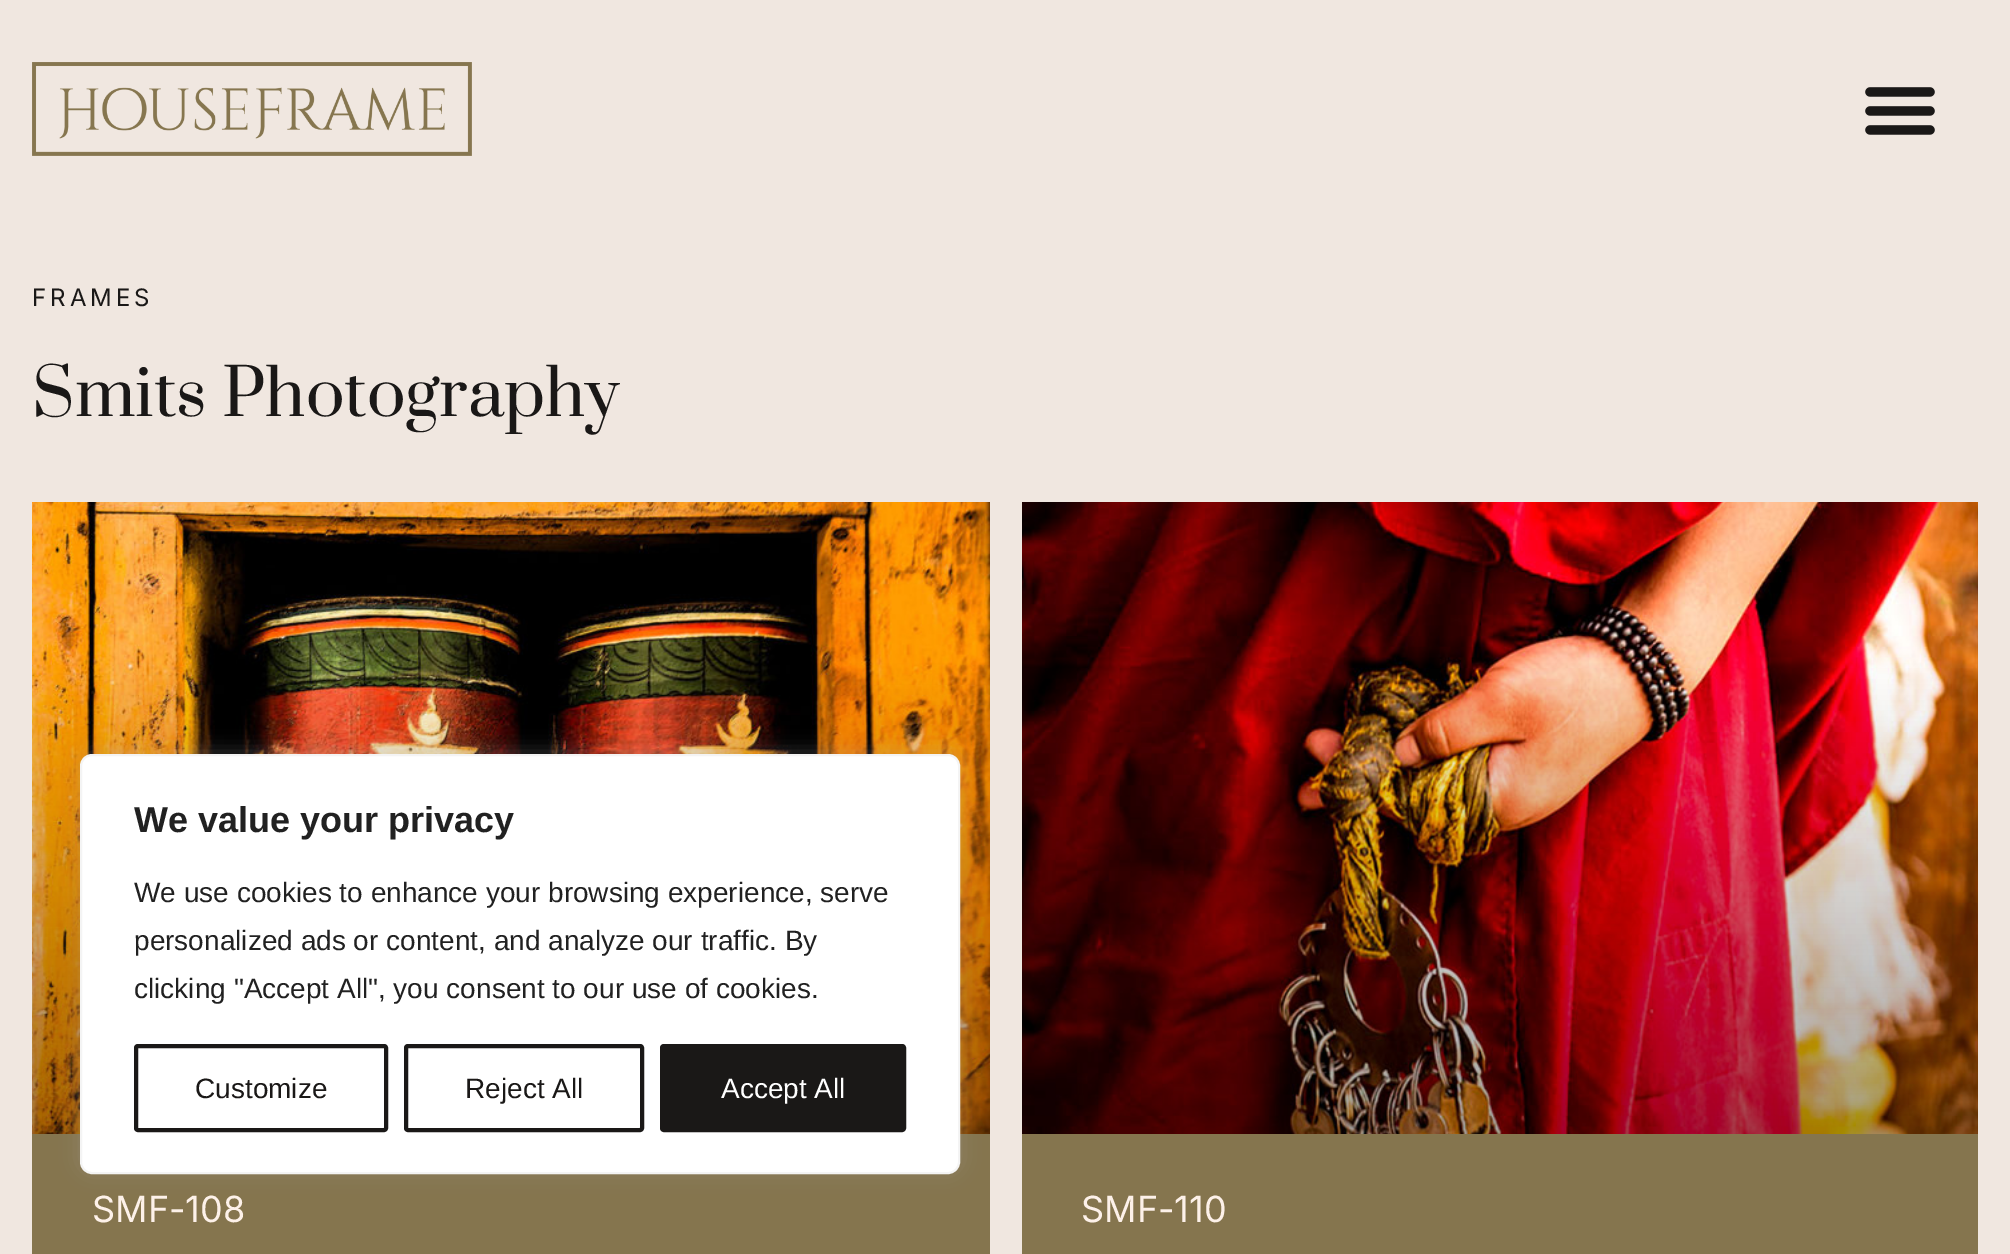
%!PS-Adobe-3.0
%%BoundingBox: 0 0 2010 1254
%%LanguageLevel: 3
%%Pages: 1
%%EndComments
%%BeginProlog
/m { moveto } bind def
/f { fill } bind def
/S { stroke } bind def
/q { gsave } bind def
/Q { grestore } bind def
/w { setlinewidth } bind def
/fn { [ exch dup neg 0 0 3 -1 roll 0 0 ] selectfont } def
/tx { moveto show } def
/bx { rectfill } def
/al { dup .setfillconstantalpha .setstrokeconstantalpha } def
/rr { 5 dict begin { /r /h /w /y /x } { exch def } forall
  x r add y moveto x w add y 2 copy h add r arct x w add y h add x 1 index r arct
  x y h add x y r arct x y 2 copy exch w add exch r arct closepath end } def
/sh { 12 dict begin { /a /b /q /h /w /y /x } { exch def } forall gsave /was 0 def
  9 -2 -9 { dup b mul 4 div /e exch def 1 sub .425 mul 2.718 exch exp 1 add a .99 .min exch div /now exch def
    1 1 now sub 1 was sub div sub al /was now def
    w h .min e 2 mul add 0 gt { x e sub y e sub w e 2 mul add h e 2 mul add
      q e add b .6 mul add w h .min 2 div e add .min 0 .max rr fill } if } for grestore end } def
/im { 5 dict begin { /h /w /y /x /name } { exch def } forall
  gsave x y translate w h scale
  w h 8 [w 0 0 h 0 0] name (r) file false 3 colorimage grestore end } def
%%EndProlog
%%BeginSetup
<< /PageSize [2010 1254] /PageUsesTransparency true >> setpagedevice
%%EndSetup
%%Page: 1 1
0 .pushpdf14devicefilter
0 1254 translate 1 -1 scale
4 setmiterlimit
0.941 0.906 0.878 setrgbcolor
0 0 2010 1254 bx
(image0.raw) 32 62 440 94 im
(image1.raw) 1865 87 70 48 im
/Inter-Regular 24 fn
0.102 0.094 0.09 setrgbcolor
32 306 m 4 0 (FRAMES) ashow
/Prata-Regular 64 fn
(Smits Photography) 32 416 tx
0.522 0.459 0.306 setrgbcolor
32 1134 958 120 bx
(image2.raw) 32 502 958 632 im
/Inter-Regular 36 fn
0.992 0.945 0.914 setrgbcolor
(SMF-108) 92 1222 tx
0.522 0.459 0.306 setrgbcolor
1022 1134 956 120 bx
(image3.raw) 1022 502 956 632 im
0.992 0.945 0.914 setrgbcolor
(SMF-110) 1081 1222 tx
0.675 0.671 0.671 setrgbcolor
80 752 880 420 12 10 0.3 sh
1 setgray
81 755 878 418 11 rr q f Q
0.957 setgray
2 w
S
/LiberationSans-Bold 36 fn
0.129 setgray
(We value your privacy) 134 832 tx
/LiberationSans-Regular 28 fn
(We use cookies to enhance your browsing experience, serve) 134 902 tx
(personalized ads or content, and analyze our traffic. By) 134 950 tx
(clicking "Accept All", you consent to our use of cookies.) 134 998 tx
0.102 0.094 0.09 setrgbcolor
4 w
136 1046 250 84 2 rr S
(Customize) 195 1098 tx
406 1046 236 84 2 rr S
(Reject All) 465 1098 tx
662 1046 242 84 2 rr q f Q
S
1 setgray
(Accept All) 721 1098 tx
.poppdf14devicefilter showpage
%%EOF
